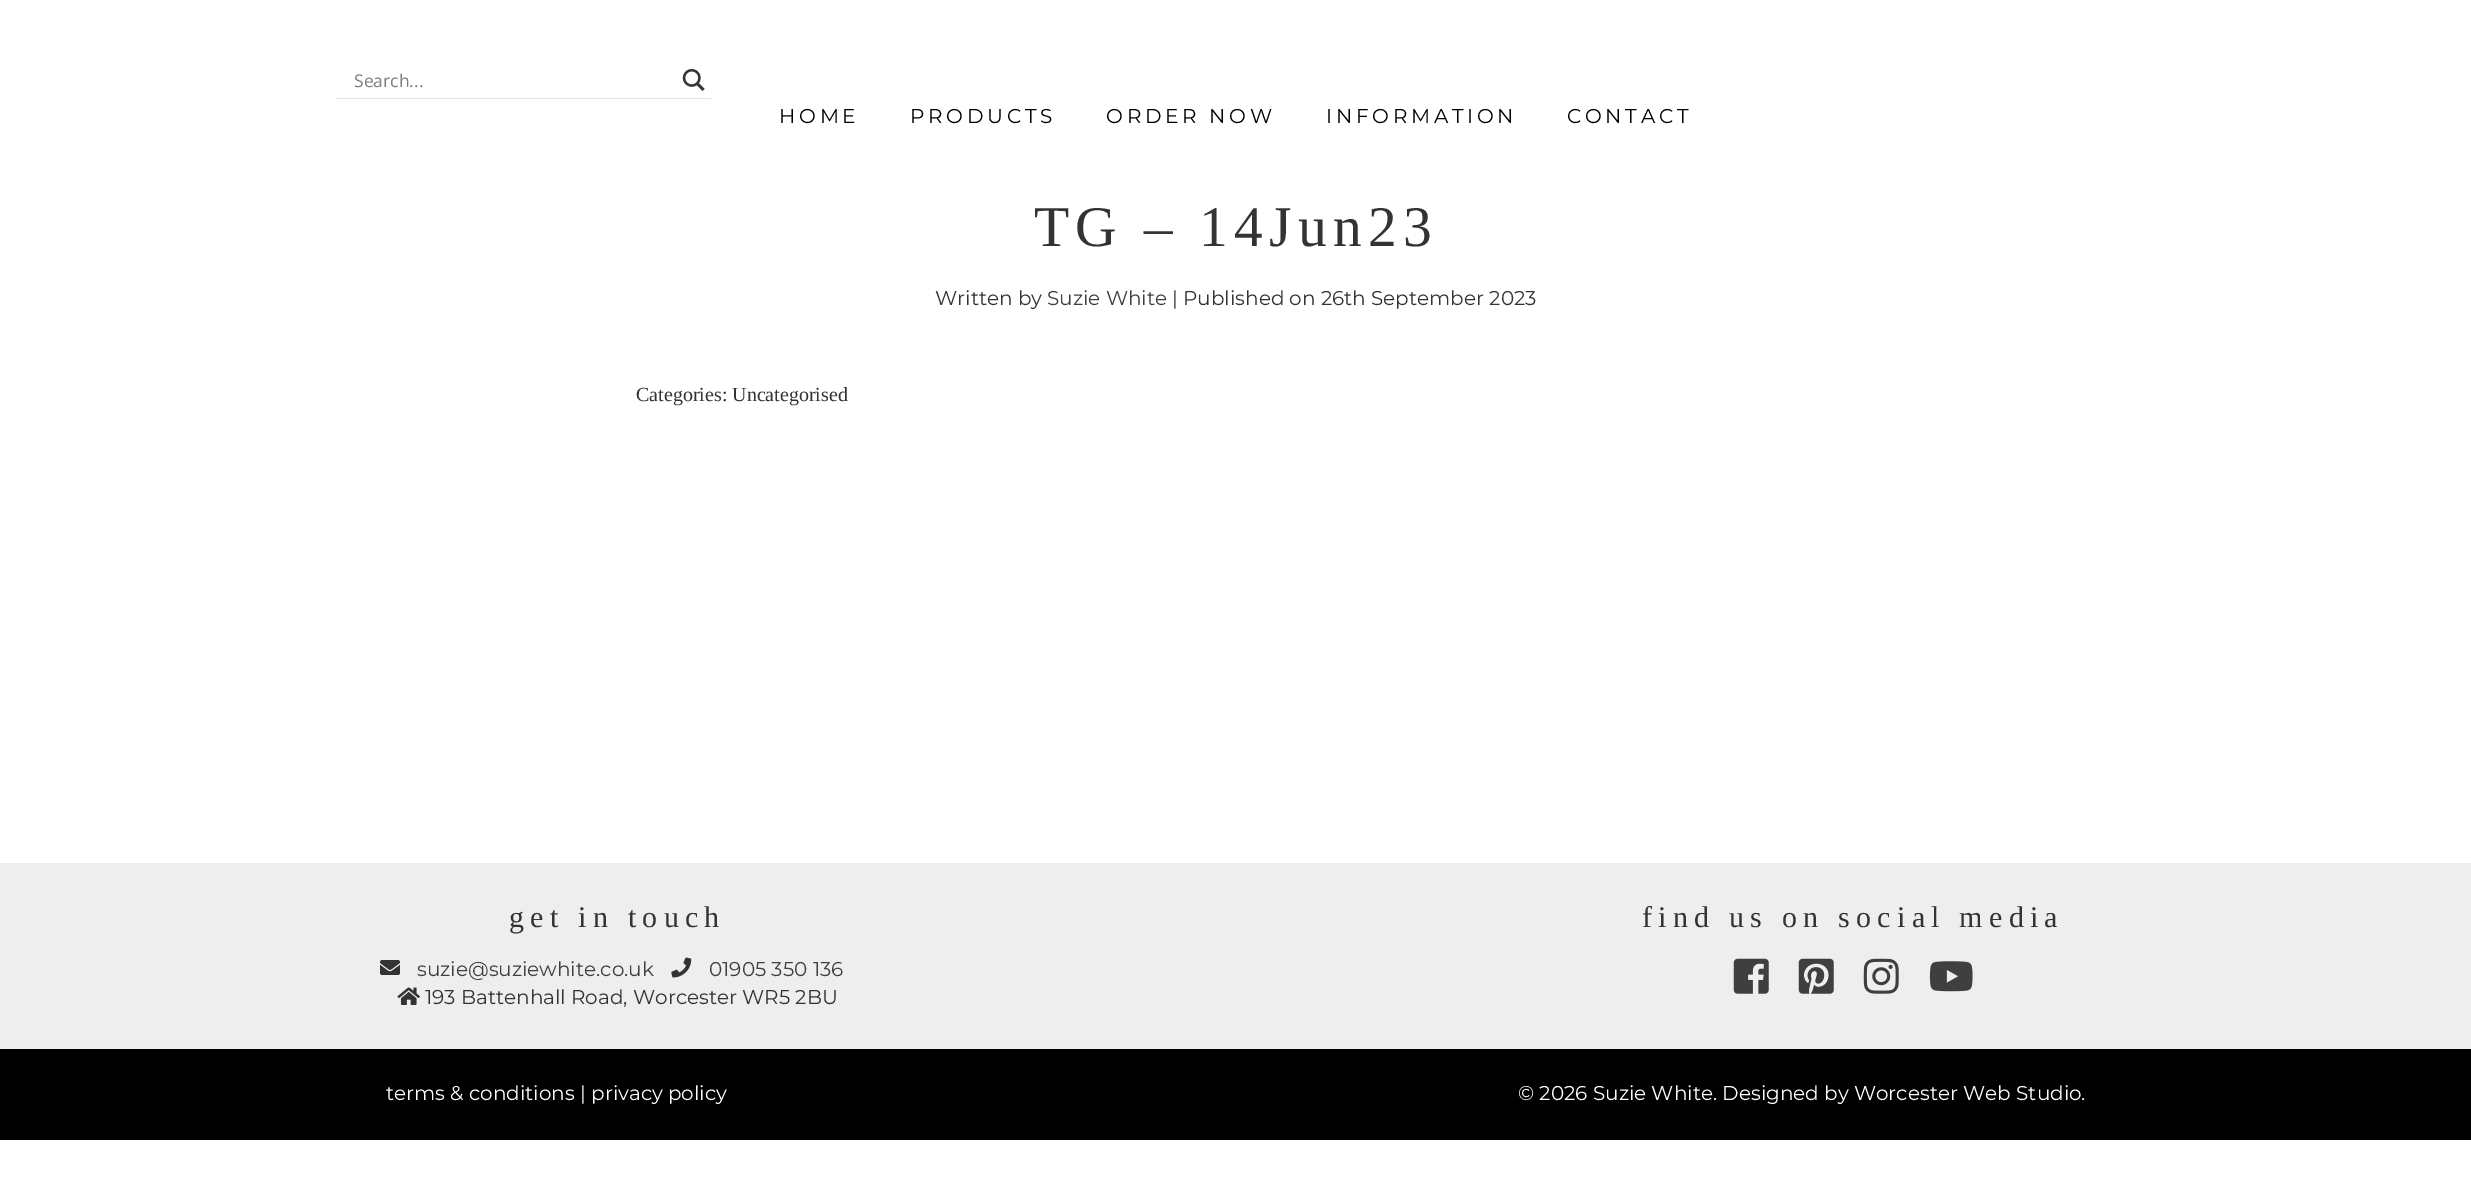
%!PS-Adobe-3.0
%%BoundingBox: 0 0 2471 1193
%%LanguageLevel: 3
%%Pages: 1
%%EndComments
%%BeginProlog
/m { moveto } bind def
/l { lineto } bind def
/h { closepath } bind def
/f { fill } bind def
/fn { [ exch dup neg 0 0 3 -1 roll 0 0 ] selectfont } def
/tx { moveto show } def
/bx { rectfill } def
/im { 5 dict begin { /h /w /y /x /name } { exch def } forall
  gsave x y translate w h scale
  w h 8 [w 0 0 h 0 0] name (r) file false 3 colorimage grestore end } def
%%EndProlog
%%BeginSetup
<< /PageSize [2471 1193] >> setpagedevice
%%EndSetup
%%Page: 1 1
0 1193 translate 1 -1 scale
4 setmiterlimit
1 setgray
0 0 2471 1193 bx
0.894 setgray
336 64 m 336 99 l 711 99 l 711 98 l 336 98 l h f
/OpenSans-Regular 17.5 fn
0.49 setgray
(Search...) 354 87 tx
(image0.raw) 682 68 23 23 im
/Montserrat-Regular 20 fn
0 setgray
779 123 m 3.75 0 (HOME) ashow
910 123 m 3.75 0 (PRODUCTS) ashow
1106 123 m 3.75 0 (ORDER NOW) ashow
1326 123 m 3.75 0 (INFORMATION) ashow
1567 123 m 3.75 0 (CONTACT) ashow
/LiberationSerif-Regular 57.5 fn
0.2 setgray
1034 246 m 6.25 0 (TG – 14Jun23) ashow
/Montserrat-Regular 20 fn
(Written by) 935 305 tx
0.247 setgray
(Suzie White) 1047 305 tx
0.2 setgray
(| Published on 26th September 2023) 1172 305 tx
/LiberationSerif-Regular 20 fn
(Categories: Uncategorised) 636 401 tx
0.933 setgray
0 863 2471 186 bx
/LiberationSerif-Regular 30 fn
0.2 setgray
509 927 m 6.25 0 (get in touch) ashow
(image1.raw) 380 960 20 15 im
/Montserrat-Regular 20 fn
0.247 setgray
(suzie@suziewhite.co.uk) 417 976 tx
(image2.raw) 671 957 21 21 im
(01905 350 136) 709 976 tx
(image3.raw) 397 987 23 18 im
0.2 setgray
(193 Battenhall Road, Worcester WR5 2BU) 425 1004 tx
/LiberationSerif-Regular 30 fn
1642 927 m 6.25 0 (find us on social media) ashow
(image4.raw) 1733 958 36 36 im
(image5.raw) 1798 958 36 36 im
(image6.raw) 1863 958 36 36 im
(image7.raw) 1929 961 44 31 im
0 setgray
0 1049 2471 91 bx
/Montserrat-Regular 20 fn
1 setgray
(terms & conditions | privacy policy) 386 1100 tx
(© 2026 Suzie White. Designed by Worcester Web Studio.) 1518 1100 tx
showpage
%%EOF
